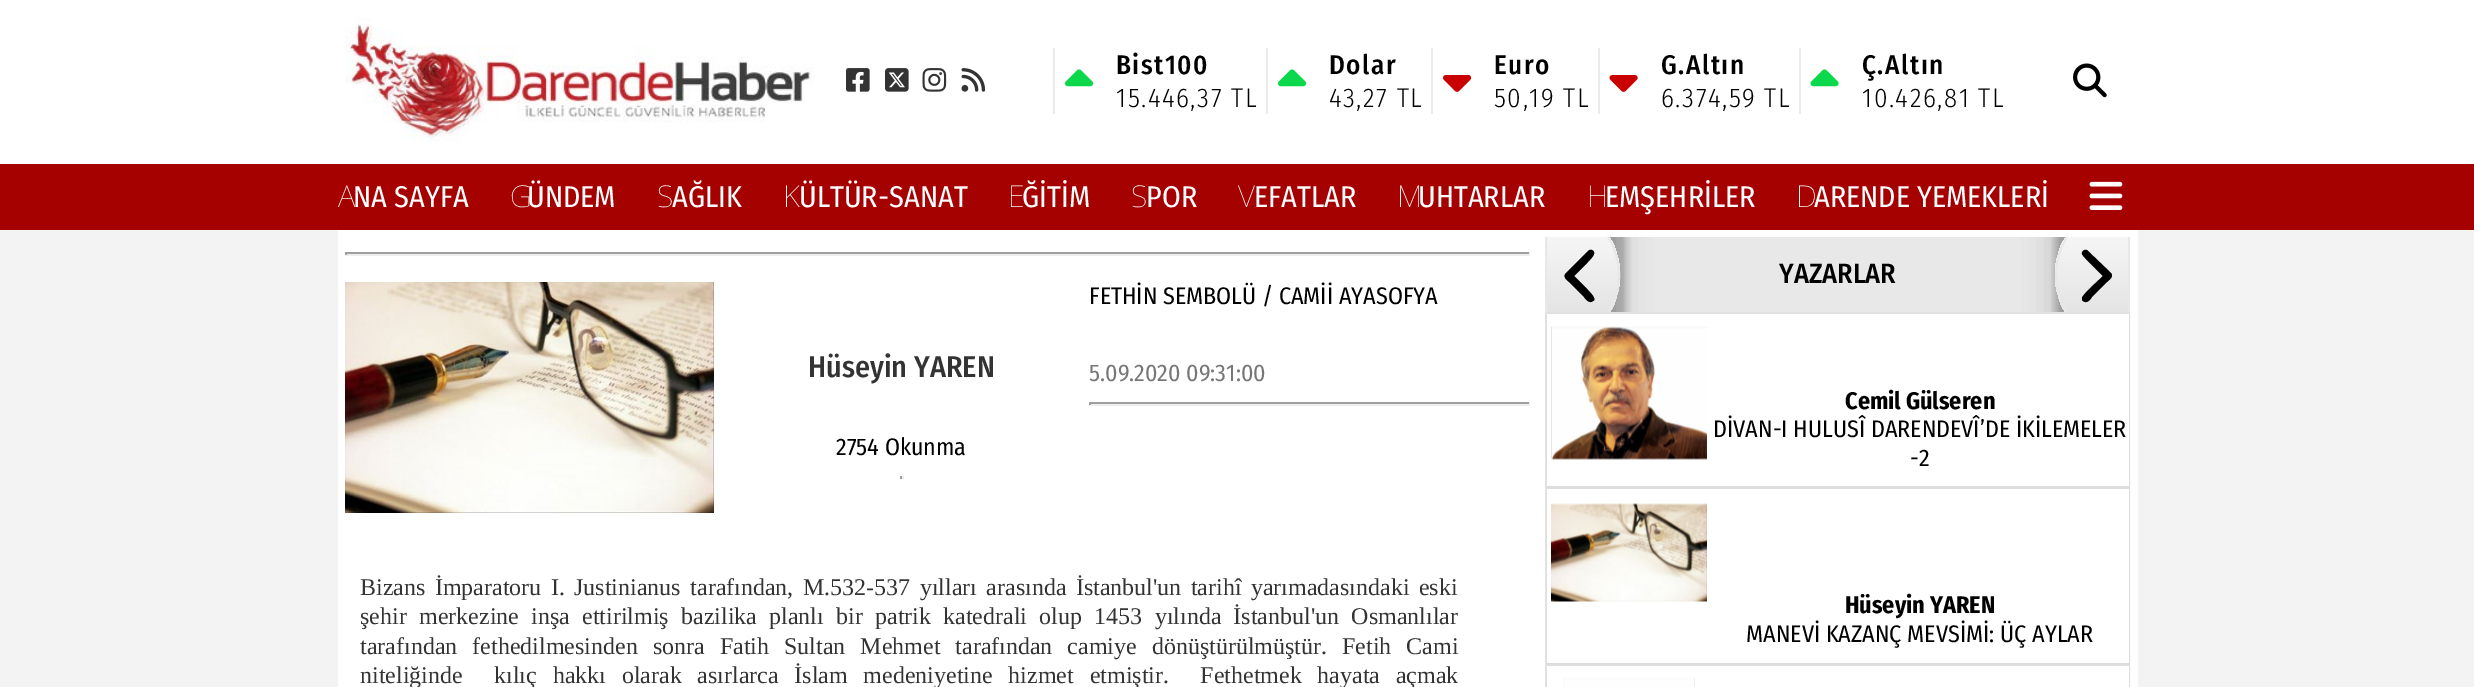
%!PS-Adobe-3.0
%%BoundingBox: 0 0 2474 687
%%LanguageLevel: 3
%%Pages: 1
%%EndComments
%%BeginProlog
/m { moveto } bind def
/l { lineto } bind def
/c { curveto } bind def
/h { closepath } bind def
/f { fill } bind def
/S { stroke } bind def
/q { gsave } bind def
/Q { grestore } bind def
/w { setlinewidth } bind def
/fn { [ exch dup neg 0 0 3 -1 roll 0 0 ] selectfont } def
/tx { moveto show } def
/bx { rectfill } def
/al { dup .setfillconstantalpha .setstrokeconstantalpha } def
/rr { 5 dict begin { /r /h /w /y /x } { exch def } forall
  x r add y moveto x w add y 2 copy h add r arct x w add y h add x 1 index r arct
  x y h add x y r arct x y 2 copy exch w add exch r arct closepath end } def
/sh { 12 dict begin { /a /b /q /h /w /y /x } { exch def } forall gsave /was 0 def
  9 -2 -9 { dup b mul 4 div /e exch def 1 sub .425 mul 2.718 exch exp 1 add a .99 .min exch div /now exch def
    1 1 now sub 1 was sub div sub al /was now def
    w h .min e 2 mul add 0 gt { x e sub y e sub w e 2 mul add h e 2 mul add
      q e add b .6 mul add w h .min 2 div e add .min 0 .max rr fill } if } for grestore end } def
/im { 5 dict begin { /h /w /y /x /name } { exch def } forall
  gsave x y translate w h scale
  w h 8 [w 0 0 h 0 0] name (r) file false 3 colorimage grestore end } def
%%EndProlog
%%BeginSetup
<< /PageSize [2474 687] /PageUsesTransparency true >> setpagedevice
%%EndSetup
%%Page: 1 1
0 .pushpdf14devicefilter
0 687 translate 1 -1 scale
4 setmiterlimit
0.953 setgray
0 0 2474 687 bx
1 setgray
0 0 2474 164 bx
(image0.raw) 345 17 469 125 im
(image1.raw) 846 68 24 24 im
(image2.raw) 885 68 24 24 im
(image3.raw) 922 68 25 24 im
(image4.raw) 961 68 25 24 im
0.922 setgray
1053 48 2 66 bx
(image5.raw) 1065 69 29 18 im
/FiraSansCondensed-Medium 27 fn
0 setgray
1116 74 m 1.5 0 (Bist100) ashow
/FiraSansCondensed-Light 27 fn
1116 107 m 1.5 0 (15.446,37 TL) ashow
0.922 setgray
1266 48 2 66 bx
(image5.raw) 1278 69 29 18 im
/FiraSansCondensed-Medium 27 fn
0 setgray
1329 74 m 1.5 0 (Dolar) ashow
/FiraSansCondensed-Light 27 fn
1329 107 m 1.5 0 (43,27 TL) ashow
0.922 setgray
1431 48 2 66 bx
(image6.raw) 1443 75 29 17 im
/FiraSansCondensed-Medium 27 fn
0 setgray
1494 74 m 1.5 0 (Euro) ashow
/FiraSansCondensed-Light 27 fn
1494 107 m 1.5 0 (50,19 TL) ashow
0.922 setgray
1598 48 2 66 bx
(image7.raw) 1609 75 29 17 im
/FiraSansCondensed-Medium 27 fn
0 setgray
1661 74 m 1.5 0 (G.Altın) ashow
/FiraSansCondensed-Light 27 fn
1661 107 m 1.5 0 (6.374,59 TL) ashow
0.922 setgray
1799 48 2 66 bx
(image8.raw) 1810 69 29 18 im
/FiraSansCondensed-Medium 27 fn
0 setgray
1862 74 m 1.5 0 (Ç.Altın) ashow
/FiraSansCondensed-Light 27 fn
1862 107 m 1.5 0 (10.426,81 TL) ashow
(image9.raw) 2073 63 34 35 im
0.647 0.004 0.004 setrgbcolor
0 164 2474 66 bx
/NotoSans-Thin 30 fn
1 setgray
(A) 338 207 tx
/FiraSansCondensed-Regular 30 fn
(NA SAYFA) 353 207 tx
/NotoSans-Thin 30 fn
(G) 510 207 tx
/FiraSansCondensed-Regular 30 fn
(ÜNDEM) 527 207 tx
/NotoSans-Thin 30 fn
(S) 657 207 tx
/FiraSansCondensed-Regular 30 fn
(AĞLIK) 672 207 tx
/NotoSans-Thin 30 fn
(K) 783 207 tx
/FiraSansCondensed-Regular 30 fn
(ÜLTÜR-SANAT) 799 207 tx
/NotoSans-Thin 30 fn
(E) 1008 207 tx
/FiraSansCondensed-Regular 30 fn
(ĞİTİM) 1022 207 tx
/NotoSans-Thin 30 fn
(S) 1131 207 tx
/FiraSansCondensed-Regular 30 fn
(POR) 1146 207 tx
/NotoSans-Thin 30 fn
(V) 1238 207 tx
/FiraSansCondensed-Regular 30 fn
(EFATLAR) 1254 207 tx
/NotoSans-Thin 30 fn
(M) 1397 207 tx
/FiraSansCondensed-Regular 30 fn
(UHTARLAR) 1418 207 tx
/NotoSans-Thin 30 fn
(H) 1587 207 tx
/FiraSansCondensed-Regular 30 fn
(EMŞEHRİLER) 1605 207 tx
/NotoSans-Thin 30 fn
(D) 1796 207 tx
/FiraSansCondensed-Regular 30 fn
(ARENDE YEMEKLERİ) 1814 207 tx
(image10.raw) 2089 181 34 29 im
338 230 1800 457 bx
0.624 setgray
345 252 1185 2 bx
0.933 setgray
1529 252 1 3 bx
345 254 1185 2 bx
0.624 setgray
345 252 2 3 bx
(image11.raw) 345 282 369 231 im
/FiraSansCondensed-Regular 24 fn
0 setgray
(FETHİN SEMBOLÜ / CAMİİ AYASOFYA) 1089 304 tx
0.467 setgray
(5.09.2020 09:31:00) 1089 381 tx
0.624 setgray
1089 402 441 2 bx
0.933 setgray
1529 402 1 3 bx
1089 404 441 2 bx
0.624 setgray
1089 402 2 3 bx
/FiraSansCondensed-Medium 30 fn
0.2 setgray
(Hüseyin YAREN) 808 377 tx
/FiraSansCondensed-Regular 24 fn
0 setgray
(2754 Okunma) 836 455 tx
0.933 setgray
902 476 2 3 bx
900 477 3 2 bx
0.624 setgray
900 476 2 3 bx
/LiberationSerif-Regular 24 fn
0.2 setgray
360 595 m 3.4 0 32 (Bizans İmparatoru I. Justinianus tarafından, M.532-537 yılları arasında İstanbul'un tarihî yarımadasındaki eski) widthshow
360 624 m 6.25 0 32 (şehir merkezine inşa ettirilmiş bazilika planlı bir patrik katedrali olup 1453 yılında İstanbul'un Osmanlılar) widthshow
360 654 m 9 0 32 (tarafından fethedilmesinden sonra Fatih Sultan Mehmet tarafından camiye dönüştürülmüştür. Fetih Cami) widthshow
360 683 m 9.75 0 32 (niteliğinde  kılıç hakkı olarak asırlarca İslam medeniyetine hizmet etmiştir.  Fethetmek hayata açmak) widthshow
0.91 setgray
1609 237 457 75 bx
2 w
1546 313 583 174 rectstroke
q
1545 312 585 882 rectclip
0.753 setgray
1547 314 582 172 0 2 0.5 sh
Q
1 setgray
1547 314 582 172 bx
(image12.raw) 1551 326 156 134 im
q
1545 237 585 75 rectclip
0 setgray
1545 209 75 150 75 15 0.2 sh
1545 200 81 156 78 3 0.2 sh
Q
q
1545 200 m 1586.5 200 1620 233.5 1620 275 c 1620 316.5 1586.5 350 1545 350 c h clip newpath
q 1547 237 m 1620 237 l 1620 312 l 1547 312 l h clip newpath
<< /ShadingType 2 /ColorSpace /DeviceRGB /Coords [1583 201 1583 348] /Extend [true true] /Function << /FunctionType 2 /Domain [0 1] /C0 [0.996 0.996 0.996] /C1 [0.863 0.863 0.863] /N 1 >> >> shfill Q
Q
q
1545 237 585 75 rectclip
0.91 setgray
1546 201 m 1545 201 l 1586 201 1619 234 1619 275 c 1619 316 1586 349 1545 349 c 1546 349 l h S
Q
0 setgray
1566 273 m 1562 277 1567 280 1569 282 c 1584 297 l 1586 300 1590 304 1593 301 c 1594 301 1595 299 1594 298 c 1594 295 1577 279 1574 276 c 1577 273 1594 257 1594 254 c 1595 251 1591 248 1588 251 c h f
/FiraSansCondensed-Medium 28 fn
(YAZARLAR) 1779 283 tx
q
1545 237 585 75 rectclip
2055 209 75 150 75 15 0.2 sh
2055 200 81 156 78 3 0.2 sh
Q
q
2130 200 m 2130 350 l 2088.5 350 2055 316.5 2055 275 c 2055 233.5 2088.5 200 2130 200 c h clip newpath
q 2055 237 m 2128 237 l 2128 312 l 2055 312 l h clip newpath
<< /ShadingType 2 /ColorSpace /DeviceRGB /Coords [2093 201 2093 348] /Extend [true true] /Function << /FunctionType 2 /Domain [0 1] /C0 [0.996 0.996 0.996] /C1 [0.863 0.863 0.863] /N 1 >> >> shfill Q
Q
q
1545 237 585 75 rectclip
0.91 setgray
2130 201 m 2129 201 l 2129 349 l 2130 349 l 2089 349 2056 316 2056 275 c 2056 234 2089 201 2130 201 c h S
Q
2111 273 m 2114 277 2109 280 2107 282 c 2092 297 l 2090 300 2087 304 2083 301 c 2082 301 2082 299 2082 298 c 2082 295 2100 279 2103 276 c 2100 273 2083 257 2082 254 c 2081 251 2086 248 2088 251 c h f
/FiraSansCondensed-Bold 24 fn
(Cemil Gülseren) 1845 409 tx
/FiraSansCondensed-Regular 24 fn
(DİVAN-I HULUSÎ DARENDEVÎ’DE İKİLEMELER) 1713 437 tx
(-2) 1910 466 tx
0.91 setgray
1546 489 583 175 rectstroke
q
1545 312 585 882 rectclip
0.753 setgray
1547 489 582 174 0 2 0.5 sh
Q
1 setgray
1547 489 582 174 bx
(image13.raw) 1551 503 156 99 im
/FiraSansCondensed-Bold 24 fn
0 setgray
(Hüseyin YAREN) 1845 613 tx
/FiraSansCondensed-Regular 24 fn
(MANEVİ KAZANÇ MEVSİMİ: ÜÇ AYLAR) 1746 642 tx
0.91 setgray
1546 666 583 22 rectstroke
q
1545 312 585 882 rectclip
0.753 setgray
1547 666 582 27 0 2 0.5 sh
Q
1 setgray
1547 666 582 21 bx
(image14.raw) 1563 677 132 10 im
.poppdf14devicefilter showpage
%%EOF
